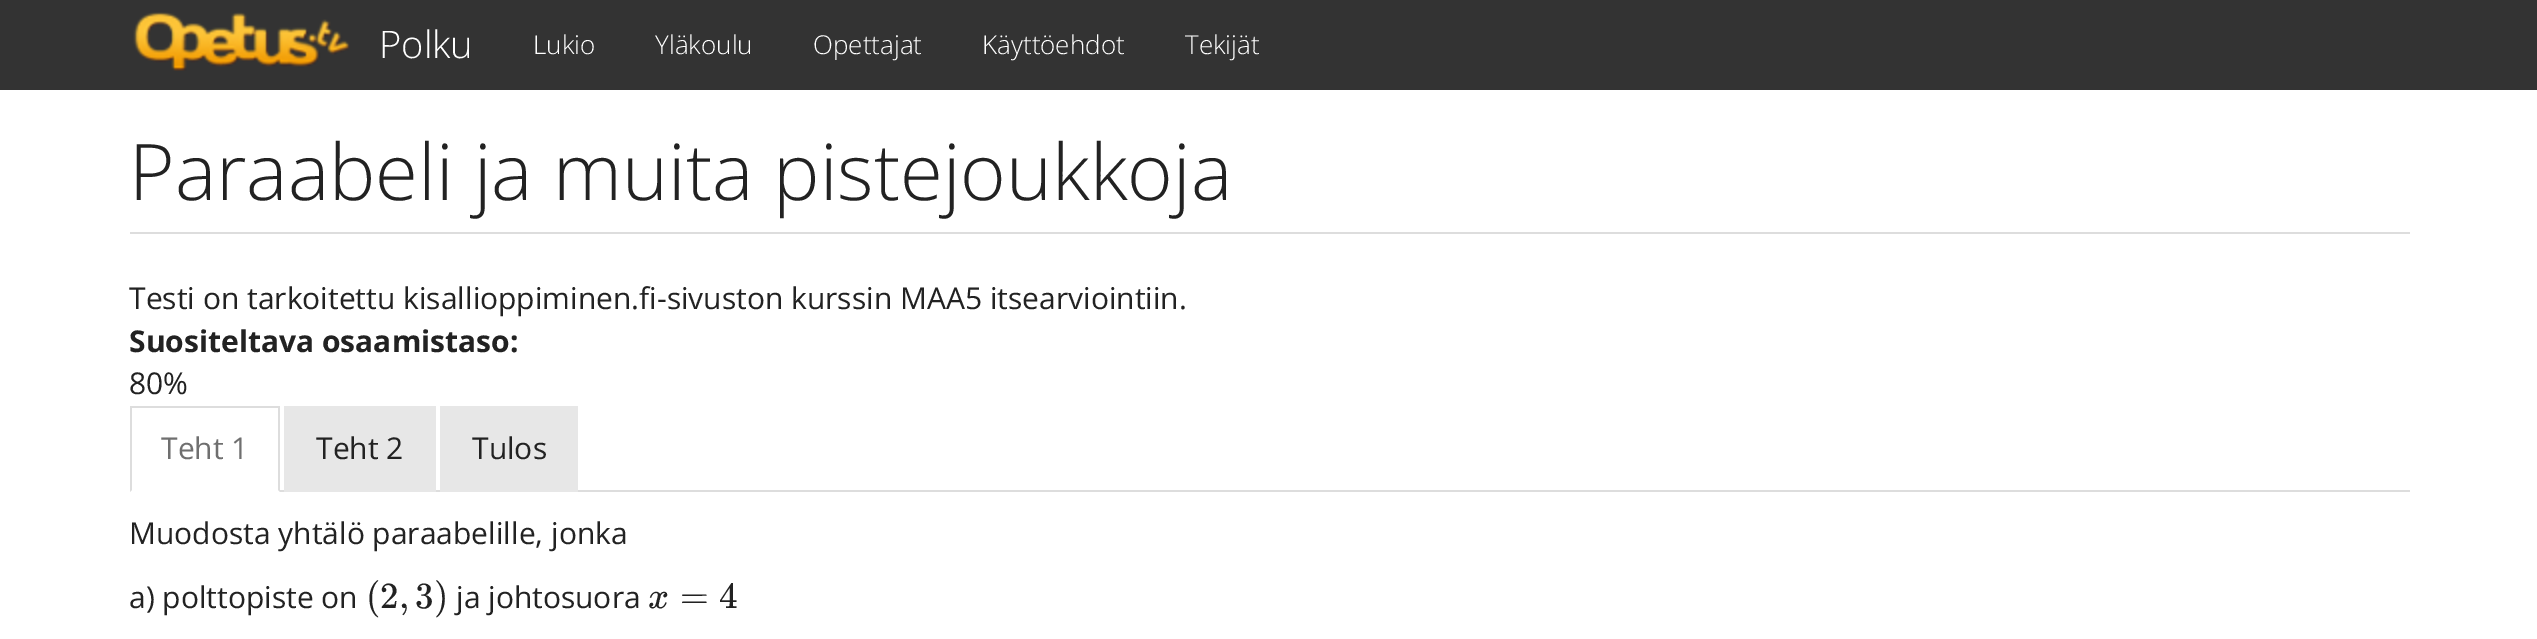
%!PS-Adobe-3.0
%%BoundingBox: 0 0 2537 639
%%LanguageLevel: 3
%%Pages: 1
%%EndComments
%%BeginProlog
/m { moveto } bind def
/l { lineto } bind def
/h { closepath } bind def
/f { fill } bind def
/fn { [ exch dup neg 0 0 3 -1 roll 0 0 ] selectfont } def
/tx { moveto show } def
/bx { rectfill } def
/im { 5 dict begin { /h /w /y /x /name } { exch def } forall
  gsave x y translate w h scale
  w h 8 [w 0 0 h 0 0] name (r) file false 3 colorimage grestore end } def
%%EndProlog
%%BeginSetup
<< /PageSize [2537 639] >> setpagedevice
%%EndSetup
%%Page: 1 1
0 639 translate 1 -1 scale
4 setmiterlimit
1 setgray
0 0 2537 639 bx
0.2 setgray
0 0 2537 90 bx
(image0.raw) 133 12 217 59 im
/OpenSans-Light 38 fn
1 setgray
(Polku) 379 58 tx
/OpenSans-Light 26 fn
(Lukio) 533 54 tx
(Yläkoulu) 655 54 tx
(Opettajat) 813 54 tx
(Käyttöehdot) 982 54 tx
(Tekijät) 1185 54 tx
0.867 setgray
130 232 2280 2 bx
/OpenSans-Light 78 fn
0.133 setgray
(Paraabeli ja muita pistejoukkoja) 129 200 tx
/OpenSans-Regular 30 fn
(Testi on tarkoitettu kisallioppiminen.fi-sivuston kurssin MAA5 itsearviointiin.) 129 309 tx
/OpenSans-Bold 30 fn
(Suositeltava osaamistaso:) 129 352 tx
/OpenSans-Regular 30 fn
(80%) 129 394 tx
0.867 setgray
280 490 2130 2 bx
130 406 150 2 bx
280 406 m 280 492 l 278 490 l 278 408 l h f
130 492 m 130 406 l 132 408 l 132 490 l h f
0.435 setgray
(Teht 1) 161 459 tx
0.906 setgray
284 406 152 86 bx
0.133 setgray
(Teht 2) 316 459 tx
0.906 setgray
440 406 138 86 bx
0.133 setgray
(Tulos) 472 459 tx
(Muodosta yhtälö paraabelille, jonka) 129 544 tx
(a\) polttopiste on) 129 608 tx
/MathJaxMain-Regular 37 fn
(\(2,) 366 608 tx
(3\)) 415 608 tx
/OpenSans-Regular 30 fn
(ja johtosuora) 456 608 tx
/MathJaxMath-Italic 37 fn
(x) 648 608 tx
/MathJaxMain-Regular 37 fn
(=) 680 608 tx
(4) 719 608 tx
showpage
%%EOF
